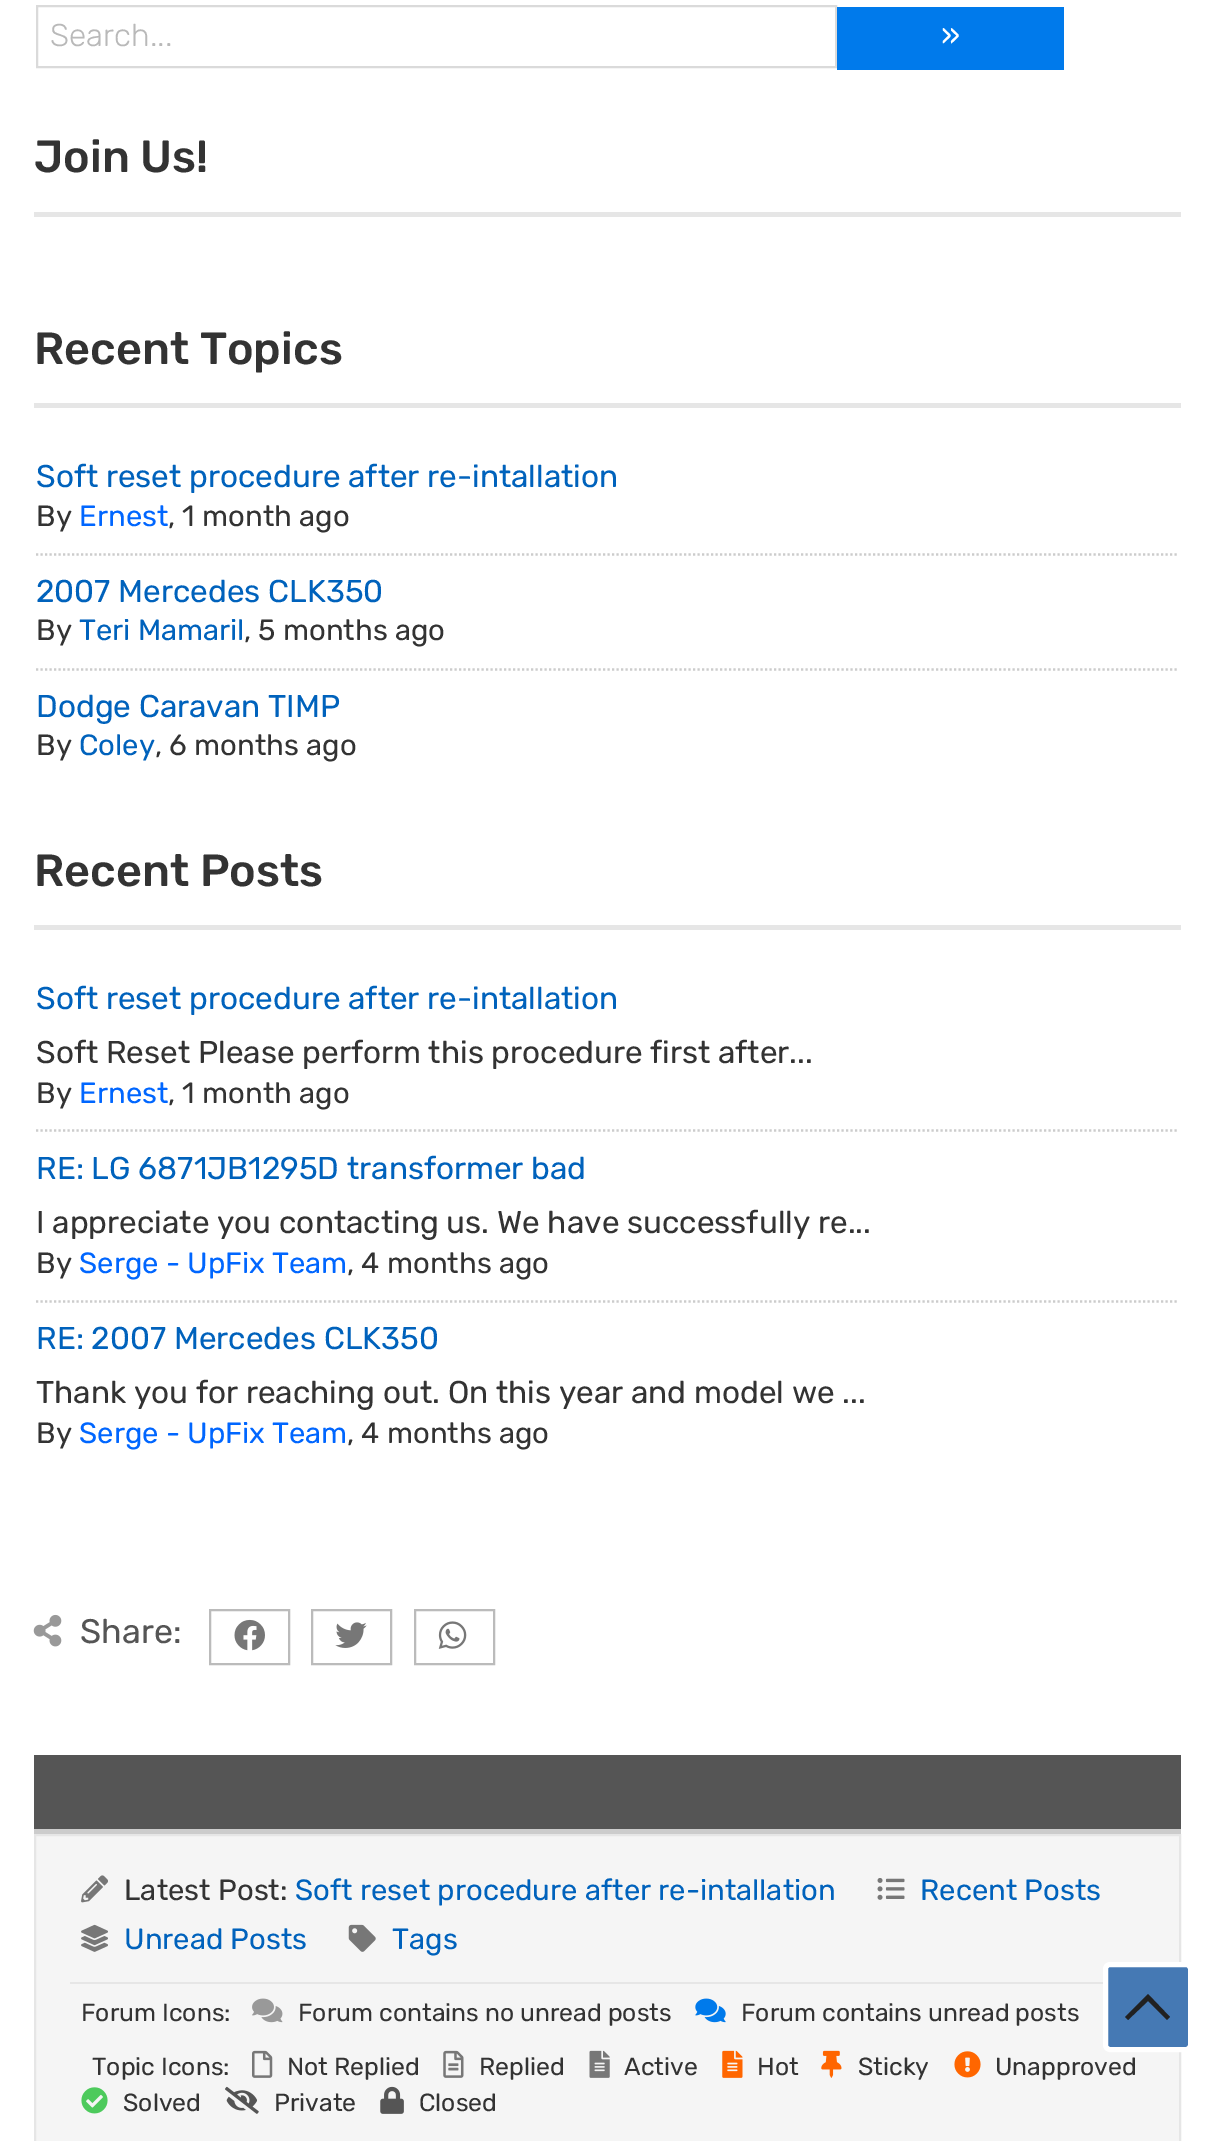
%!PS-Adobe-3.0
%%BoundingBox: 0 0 1213 2141
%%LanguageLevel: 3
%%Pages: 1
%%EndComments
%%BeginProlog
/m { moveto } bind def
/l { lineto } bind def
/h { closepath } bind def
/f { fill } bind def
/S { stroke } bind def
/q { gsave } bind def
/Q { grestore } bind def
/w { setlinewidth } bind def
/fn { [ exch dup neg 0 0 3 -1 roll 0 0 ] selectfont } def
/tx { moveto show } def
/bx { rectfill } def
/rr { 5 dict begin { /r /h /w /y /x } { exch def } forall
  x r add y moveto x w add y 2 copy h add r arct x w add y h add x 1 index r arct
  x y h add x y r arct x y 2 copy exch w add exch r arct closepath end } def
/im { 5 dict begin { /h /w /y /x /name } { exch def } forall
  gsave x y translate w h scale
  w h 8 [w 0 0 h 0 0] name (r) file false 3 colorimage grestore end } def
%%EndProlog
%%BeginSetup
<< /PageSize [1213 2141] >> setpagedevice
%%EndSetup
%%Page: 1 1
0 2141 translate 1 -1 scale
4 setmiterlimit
1 setgray
0 0 1213 2141 bx
0.855 setgray
2 w
37 6 799 61 rectstroke
/Rubik-Light 31.5 fn
0.725 setgray
(Search...) 50 46 tx
0 0.478 0.922 setrgbcolor
837 7 227 63 bx
/Rubik-Regular 31.5 fn
1 setgray
(») 941 46 tx
0.902 setgray
34 212 1147 5 bx
/Rubik-Medium 45 fn
0.2 setgray
(Join Us!) 34 172 tx
0.902 setgray
34 403 1147 5 bx
0.2 setgray
(Recent Topics) 34 364 tx
0.8 setgray
2.2 w
[2.25 2.25] 0 setdash
36 554.5 m 1179 554.5 l S
/Rubik-Regular 31.5 fn
0 0.384 0.737 setrgbcolor
(Soft reset procedure after re-intallation) 36 487 tx
/Rubik-Regular 29.25 fn
0.2 setgray
(By) 36 526 tx
0 0.4 1 setrgbcolor
(Ernest) 79 526 tx
0.2 setgray
(, 1 month ago) 168 526 tx
0.8 setgray
36 669.5 m 1179 669.5 l S
/Rubik-Regular 31.5 fn
0 0.384 0.737 setrgbcolor
(2007 Mercedes CLK350) 36 602 tx
/Rubik-Regular 29.25 fn
0.2 setgray
(By) 36 640 tx
0 0.384 0.737 setrgbcolor
(Teri Mamaril) 79 640 tx
0.2 setgray
(, 5 months ago) 244 640 tx
/Rubik-Regular 31.5 fn
0 0.384 0.737 setrgbcolor
(Dodge Caravan TIMP) 36 717 tx
/Rubik-Regular 29.25 fn
0.2 setgray
(By) 36 755 tx
0 0.384 0.737 setrgbcolor
(Coley) 79 755 tx
0.2 setgray
(, 6 months ago) 155 755 tx
0.902 setgray
34 925 1147 5 bx
/Rubik-Medium 45 fn
0.2 setgray
(Recent Posts) 34 886 tx
0.8 setgray
36 1130.5 m 1179 1130.5 l S
/Rubik-Regular 31.5 fn
0 0.384 0.737 setrgbcolor
(Soft reset procedure after re-intallation) 36 1009 tx
0.2 setgray
(Soft Reset Please perform this procedure first after...) 36 1063 tx
/Rubik-Regular 29.25 fn
(By) 36 1103 tx
0 0.4 1 setrgbcolor
(Ernest) 79 1103 tx
0.2 setgray
(, 1 month ago) 168 1103 tx
0.8 setgray
36 1301.5 m 1179 1301.5 l S
/Rubik-Regular 31.5 fn
0 0.384 0.737 setrgbcolor
(RE: LG 6871JB1295D transformer bad) 36 1179 tx
0.2 setgray
(I appreciate you contacting us. We have successfully re...) 36 1233 tx
/Rubik-Regular 29.25 fn
(By) 36 1273 tx
0 0.4 1 setrgbcolor
(Serge - UpFix Team) 79 1273 tx
0.2 setgray
(, 4 months ago) 347 1273 tx
/Rubik-Regular 31.5 fn
0 0.384 0.737 setrgbcolor
(RE: 2007 Mercedes CLK350) 36 1349 tx
0.2 setgray
(Thank you for reaching out. On this year and model we ...) 36 1403 tx
/Rubik-Regular 29.25 fn
(By) 36 1443 tx
0 0.4 1 setrgbcolor
(Serge - UpFix Team) 79 1443 tx
0.2 setgray
(, 4 months ago) 347 1443 tx
(image0.raw) 33 1614 29 33 im
/Rubik-Regular 34 fn
0.333 setgray
(Share:) 80 1643 tx
0.733 setgray
2 w
[] 0 setdash
210 1610 79 54 rectstroke
(image1.raw) 234 1619 31 32 im
312 1610 79 54 rectstroke
(image2.raw) 335 1622 32 26 im
415 1610 79 54 rectstroke
(image3.raw) 438 1621 29 28 im
0.333 setgray
34 1755 1147 74 bx
0.8 setgray
34 1829 1147 5 bx
0.961 setgray
35 1835 m 1180 1835 l 1180 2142 l 35 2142 l h q f Q
0.902 setgray
S
(image4.raw) 81 1875 27 28 im
/Rubik-Regular 29.25 fn
0.2 setgray
(Latest Post:) 124 1900 tx
0 0.384 0.737 setrgbcolor
(Soft reset procedure after re-intallation) 295 1900 tx
(image5.raw) 877 1878 28 22 im
(Recent Posts) 920 1900 tx
(image6.raw) 81 1924 27 28 im
(Unread Posts) 124 1949 tx
(image7.raw) 348 1924 28 28 im
(Tags) 392 1949 tx
0.902 setgray
70 1982 1033 2 bx
/Rubik-Regular 24.75 fn
0.2 setgray
(Forum Icons:) 81 2021 tx
(image8.raw) 252 1998 31 25 im
(Forum contains no unread posts) 298 2021 tx
(image9.raw) 695 1998 31 25 im
(Forum contains unread posts) 741 2021 tx
(Topic Icons:) 92 2075 tx
(image10.raw) 252 2050 21 28 im
(Not Replied) 287 2075 tx
(image11.raw) 443 2050 21 28 im
(Replied) 479 2075 tx
(image12.raw) 589 2050 21 28 im
(Active) 624 2075 tx
(image13.raw) 722 2050 21 28 im
(Hot) 757 2075 tx
(image14.raw) 821 2050 21 28 im
(Sticky) 858 2075 tx
(image15.raw) 954 2051 27 27 im
(Unapproved) 995 2075 tx
(image16.raw) 81 2087 27 27 im
(Solved) 123 2111 tx
(image17.raw) 225 2086 34 28 im
(Private) 274 2111 tx
(image18.raw) 380 2086 24 28 im
(Closed) 419 2111 tx
0.271 0.475 0.706 setrgbcolor
1105.5 1964.5 85 85 4.5 rr q f Q
1 setgray
5 w
S
0.129 setgray
1170 2017 m 1148 1994 l 1125 2017 l 1128 2020 l 1148 2001 l 1167 2020 l h f
showpage
%%EOF
